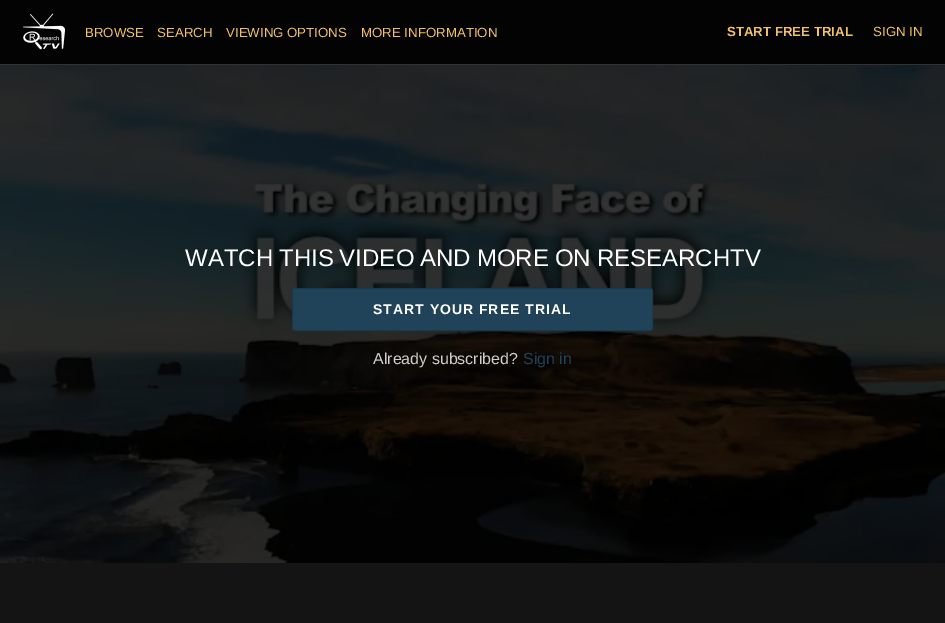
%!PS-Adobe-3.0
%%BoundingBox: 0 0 945 623
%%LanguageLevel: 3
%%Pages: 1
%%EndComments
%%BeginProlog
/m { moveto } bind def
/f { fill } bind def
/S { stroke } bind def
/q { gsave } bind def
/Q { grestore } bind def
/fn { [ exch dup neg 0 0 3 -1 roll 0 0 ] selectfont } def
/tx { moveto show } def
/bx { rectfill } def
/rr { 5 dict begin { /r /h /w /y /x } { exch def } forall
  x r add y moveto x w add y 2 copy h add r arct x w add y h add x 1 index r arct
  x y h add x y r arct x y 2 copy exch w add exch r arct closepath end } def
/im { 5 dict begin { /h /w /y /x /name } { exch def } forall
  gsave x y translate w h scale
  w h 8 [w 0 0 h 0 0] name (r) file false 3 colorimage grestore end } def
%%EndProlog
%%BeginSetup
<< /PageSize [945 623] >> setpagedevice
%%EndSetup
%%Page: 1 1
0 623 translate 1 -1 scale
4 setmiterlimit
0.078 setgray
0 0 945 623 bx
0.012 setgray
0 0 945 64 bx
0.196 setgray
0 64 945 1 bx
(image0.raw) 23 13 42 37 im
/LiberationSans-Regular 13.25 fn
0.949 0.757 0.4 setrgbcolor
(BROWSE) 85 37 tx
(SEARCH) 157 37 tx
(VIEWING OPTIONS) 226 37 tx
(MORE INFORMATION) 361 37 tx
/LiberationSans-Bold 13.25 fn
(START FREE TRIAL) 727 36 tx
/LiberationSans-Regular 13.25 fn
(SIGN IN) 873 36 tx
(image1.raw) 0 65 945 498 im
/LiberationSans-Regular 24 fn
1 setgray
185 266 m -0.75 0 32 (WATCH THIS VIDEO AND MORE ON RESEARCHTV) widthshow
0.125 0.263 0.349 setrgbcolor
292.5 288.5 360 42 2.5 rr q f Q
0.106 0.224 0.298 setrgbcolor
S
/LiberationSans-Bold 14 fn
1 setgray
373 314 m 1 0 (START YOUR FREE TRIAL) ashow
/LiberationSans-Regular 16 fn
0.812 0.808 0.804 setrgbcolor
(Already subscribed?) 373 364 tx
0.125 0.263 0.349 setrgbcolor
(Sign in) 523 364 tx
showpage
%%EOF
